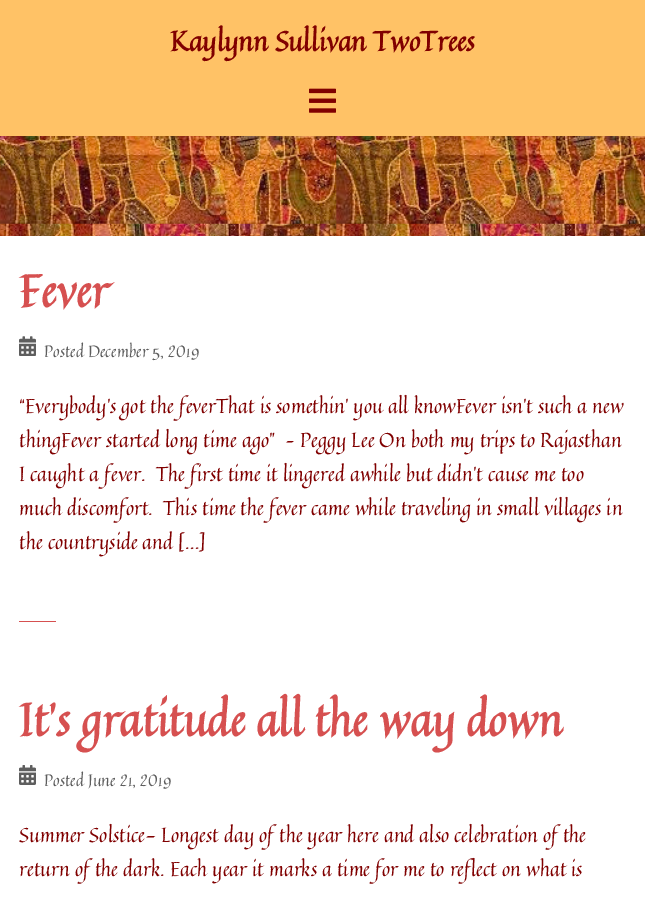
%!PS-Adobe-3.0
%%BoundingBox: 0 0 645 901
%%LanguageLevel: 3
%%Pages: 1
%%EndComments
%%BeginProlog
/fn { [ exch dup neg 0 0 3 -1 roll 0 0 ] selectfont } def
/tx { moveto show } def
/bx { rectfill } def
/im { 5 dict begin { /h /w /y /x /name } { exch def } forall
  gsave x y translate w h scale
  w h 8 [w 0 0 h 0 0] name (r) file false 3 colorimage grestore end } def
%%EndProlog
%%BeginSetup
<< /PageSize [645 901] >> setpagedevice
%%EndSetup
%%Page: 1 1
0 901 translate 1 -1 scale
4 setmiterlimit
1 setgray
0 0 645 901 bx
(image0.raw) 0 136 645 100 im
1 0.761 0.4 setrgbcolor
0 0 645 136 bx
/Quintessential-Bold 27.5 fn
0.502 0 0 setrgbcolor
(Kaylynn Sullivan TwoTrees) 170 51 tx
(image1.raw) 309 88 27 25 im
/Quintessential-Bold 45 fn
0.839 0.314 0.314 setrgbcolor
(Fever) 19 307 tx
(image2.raw) 19 336 17 20 im
/Quintessential-Regular 16.25 fn
0.369 setgray
(Posted December 5, 2019) 44 357 tx
/Quintessential-Regular 20 fn
0.502 0 0 setrgbcolor
(“Everybody’s got the feverThat is somethin’ you all knowFever isn’t such a new) 19 413 tx
(thingFever started long time ago”  – Peggy Lee On both my trips to Rajasthan) 19 447 tx
(I caught a fever.  The first time it lingered awhile but didn’t cause me too) 19 481 tx
(much discomfort.  This time the fever came while traveling in small villages in) 19 515 tx
(the countryside and […]) 19 549 tx
0.839 0.314 0.314 setrgbcolor
19 621 37 1 bx
/Quintessential-Bold 45 fn
(It’s gratitude all the way down) 19 736 tx
(image3.raw) 19 765 17 20 im
/Quintessential-Regular 16.25 fn
0.369 setgray
(Posted June 21, 2019) 44 786 tx
/Quintessential-Regular 20 fn
0.502 0 0 setrgbcolor
(Summer Solstice- Longest day of the year here and also celebration of the) 19 842 tx
(return of the dark. Each year it marks a time for me to reflect on what is) 19 876 tx
showpage
%%EOF
